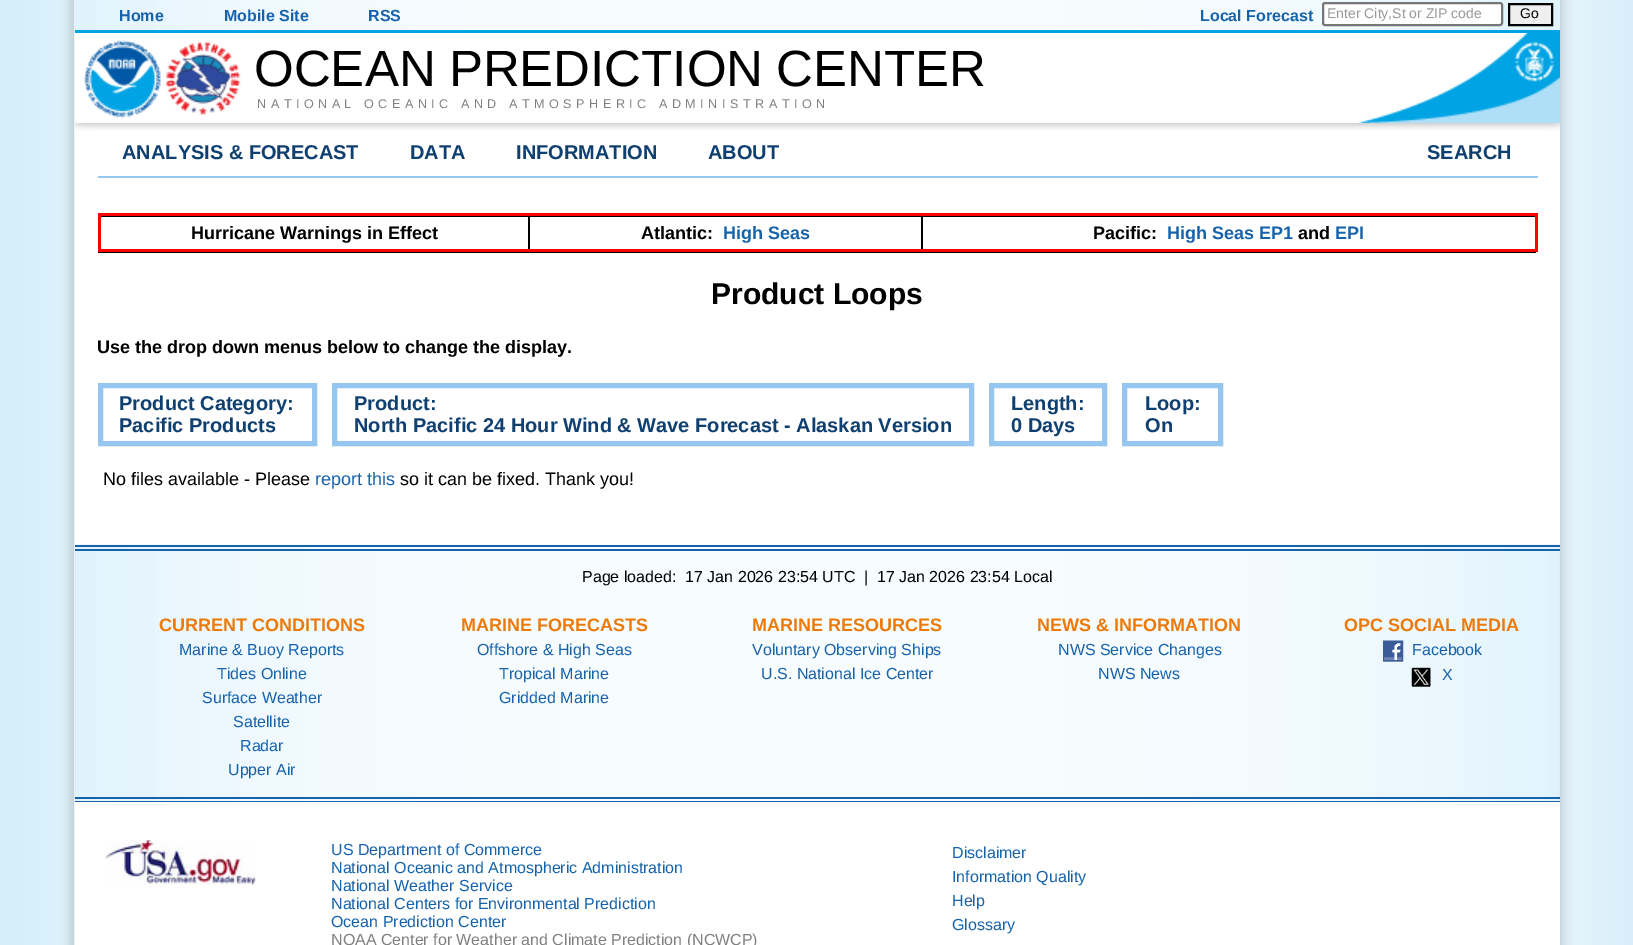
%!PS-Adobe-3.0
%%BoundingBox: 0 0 1633 945
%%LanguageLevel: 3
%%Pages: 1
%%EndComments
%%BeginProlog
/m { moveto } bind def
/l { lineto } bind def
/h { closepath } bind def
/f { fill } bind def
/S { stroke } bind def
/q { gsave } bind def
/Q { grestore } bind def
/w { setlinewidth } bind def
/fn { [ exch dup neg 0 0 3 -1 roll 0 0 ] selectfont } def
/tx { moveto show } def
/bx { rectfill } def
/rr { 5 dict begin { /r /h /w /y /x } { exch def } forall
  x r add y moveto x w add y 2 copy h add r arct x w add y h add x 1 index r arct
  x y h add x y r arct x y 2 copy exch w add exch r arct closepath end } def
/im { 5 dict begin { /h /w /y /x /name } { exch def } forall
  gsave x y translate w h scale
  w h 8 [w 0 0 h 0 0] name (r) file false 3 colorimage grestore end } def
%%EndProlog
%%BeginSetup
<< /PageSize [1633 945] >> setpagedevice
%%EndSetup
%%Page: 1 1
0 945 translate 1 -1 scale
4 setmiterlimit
1 setgray
0 0 1633 945 bx
(image6.raw) 0 0 1633 945 im
(image0.raw) 75 0 1485 30 im
0 0.639 0.89 setrgbcolor
75 30 1485 3 bx
/LiberationSans-Bold 16 fn
0.09 0.388 0.671 setrgbcolor
(Home) 119 21 tx
(Mobile Site) 224 21 tx
(RSS) 368 21 tx
(Local Forecast) 1200 21 tx
1 setgray
1323 3 179 22 2 rr q f Q
0.463 setgray
2 w
S
/LiberationSans-Regular 14 fn
0.6 setgray
(Enter City,St or ZIP code) 1327 18 tx
0.937 setgray
1509 4 m 1552 4 l 1552 25 l 1509 25 l h q f Q
0 setgray
S
(Go) 1520 18 tx
(image1.raw) 83 40 78 78 im
(image2.raw) 166 41 75 75 im
/LiberationSans-Regular 51 fn
254 86 m -1 0 32 (OCEAN PREDICTION CENTER) widthshow
(image3.raw) 1358 33 202 90 im
/LiberationSans-Regular 12.6 fn
0.502 setgray
257 108 m 4.5 0 (NATIONAL OCEANIC AND ATMOSPHERIC ADMINISTRATION) ashow
1 setgray
1559 131 1 414 bx
(image4.raw) 75 123 1485 8 im
0.58 0.776 0.937 setrgbcolor
98 176 1440 2 bx
/LiberationSans-Bold 20 fn
0.063 0.251 0.439 setrgbcolor
(ANALYSIS & FORECAST) 122 159 tx
(DATA) 410 159 tx
(INFORMATION) 516 159 tx
(ABOUT) 708 159 tx
(SEARCH) 1427 159 tx
0 setgray
921 216 615 1 bx
921 215 2 37 bx
528 216 395 1 bx
528 215 2 37 bx
1 0 0 setrgbcolor
98 213 1440 3 bx
1535 213 3 39 bx
98 249 1440 3 bx
0 setgray
98 216 432 1 bx
1 0 0 setrgbcolor
98 213 3 39 bx
/LiberationSans-Bold 18 fn
0 setgray
(Hurricane Warnings in Effect) 191 239 tx
(Atlantic:) 641 239 tx
0.09 0.388 0.671 setrgbcolor
(High Seas) 723 239 tx
0 setgray
98 252 1438 1 bx
(Pacific:) 1093 239 tx
0.09 0.388 0.671 setrgbcolor
(High Seas EP1) 1167 239 tx
0 setgray
(and) 1298 239 tx
0.09 0.388 0.671 setrgbcolor
(EPI) 1335 239 tx
/LiberationSans-Bold 30 fn
0 setgray
(Product Loops) 711 304 tx
/LiberationSans-Bold 18 fn
(Use the drop down menus below to change the display.) 97 353 tx
0.58 0.776 0.937 setrgbcolor
5 w
100.5 385.5 214 58 rectstroke
/LiberationSans-Bold 20 fn
0.063 0.251 0.439 setrgbcolor
(Product Category:) 119 410 tx
(Pacific Products) 119 432 tx
0.58 0.776 0.937 setrgbcolor
334.5 385.5 637 58 rectstroke
0.063 0.251 0.439 setrgbcolor
(Product:) 354 410 tx
(North Pacific 24 Hour Wind & Wave Forecast - Alaskan Version) 354 432 tx
0.58 0.776 0.937 setrgbcolor
991.5 385.5 113 58 rectstroke
0.063 0.251 0.439 setrgbcolor
(Length:) 1011 410 tx
(0 Days) 1011 432 tx
0.58 0.776 0.937 setrgbcolor
1124.5 385.5 96 58 rectstroke
0.063 0.251 0.439 setrgbcolor
(Loop:) 1145 410 tx
(On) 1145 432 tx
/LiberationSans-Regular 18 fn
0 setgray
(No files available - Please) 103 485 tx
0.09 0.388 0.671 setrgbcolor
(report this) 315 485 tx
0 setgray
(so it can be fixed. Thank you!) 400 485 tx
(image5.raw) 75 544 1485 257 im
0.09 0.388 0.671 setrgbcolor
75 545 1485 2 bx
75 549 1485 2 bx
75 797 1485 2 bx
75 801 1485 1 bx
/LiberationSans-Regular 16 fn
0 setgray
(Page loaded:  17 Jan 2026 23:54 UTC) 582 582 tx
(|) 864 582 tx
(17 Jan 2026 23:54 Local) 877 582 tx
/LiberationSans-Bold 18 fn
0.929 0.478 0.031 setrgbcolor
(CURRENT CONDITIONS) 159 631 tx
/LiberationSans-Regular 16 fn
0.09 0.388 0.671 setrgbcolor
(Marine & Buoy Reports) 179 655 tx
(Tides Online) 217 679 tx
(Surface Weather) 202 703 tx
(Satellite) 233 727 tx
(Radar) 240 751 tx
(Upper Air) 228 775 tx
/LiberationSans-Bold 18 fn
0.929 0.478 0.031 setrgbcolor
(MARINE FORECASTS) 461 631 tx
/LiberationSans-Regular 16 fn
0.09 0.388 0.671 setrgbcolor
(Offshore & High Seas) 477 655 tx
(Tropical Marine) 499 679 tx
(Gridded Marine) 499 703 tx
/LiberationSans-Bold 18 fn
0.929 0.478 0.031 setrgbcolor
(MARINE RESOURCES) 752 631 tx
/LiberationSans-Regular 16 fn
0.09 0.388 0.671 setrgbcolor
(Voluntary Observing Ships) 752 655 tx
(U.S. National Ice Center) 761 679 tx
/LiberationSans-Bold 18 fn
0.929 0.478 0.031 setrgbcolor
(NEWS & INFORMATION) 1037 631 tx
/LiberationSans-Regular 16 fn
0.09 0.388 0.671 setrgbcolor
(NWS Service Changes) 1058 655 tx
(NWS News) 1098 679 tx
/LiberationSans-Bold 18 fn
0.929 0.478 0.031 setrgbcolor
(OPC SOCIAL MEDIA) 1344 631 tx
(image7.raw) 1383 640 21 22 im
/LiberationSans-Regular 16 fn
0.09 0.388 0.671 setrgbcolor
(Facebook) 1412 655 tx
(image8.raw) 1411 667 20 20 im
(X) 1442 680 tx
1 setgray
1559 802 1 143 bx
(image9.raw) 105 840 151 45 im
0.09 0.388 0.671 setrgbcolor
(US Department of Commerce) 331 855 tx
(National Oceanic and Atmospheric Administration) 331 873 tx
(National Weather Service) 331 891 tx
(National Centers for Environmental Prediction) 331 909 tx
(Ocean Prediction Center) 331 927 tx
0.502 setgray
(NOAA Center for Weather and Climate Prediction \(NCWCP\)) 331 945 tx
0.09 0.388 0.671 setrgbcolor
(Disclaimer) 952 858 tx
(Information Quality) 952 882 tx
(Help) 952 906 tx
(Glossary) 952 930 tx
showpage
%%EOF
